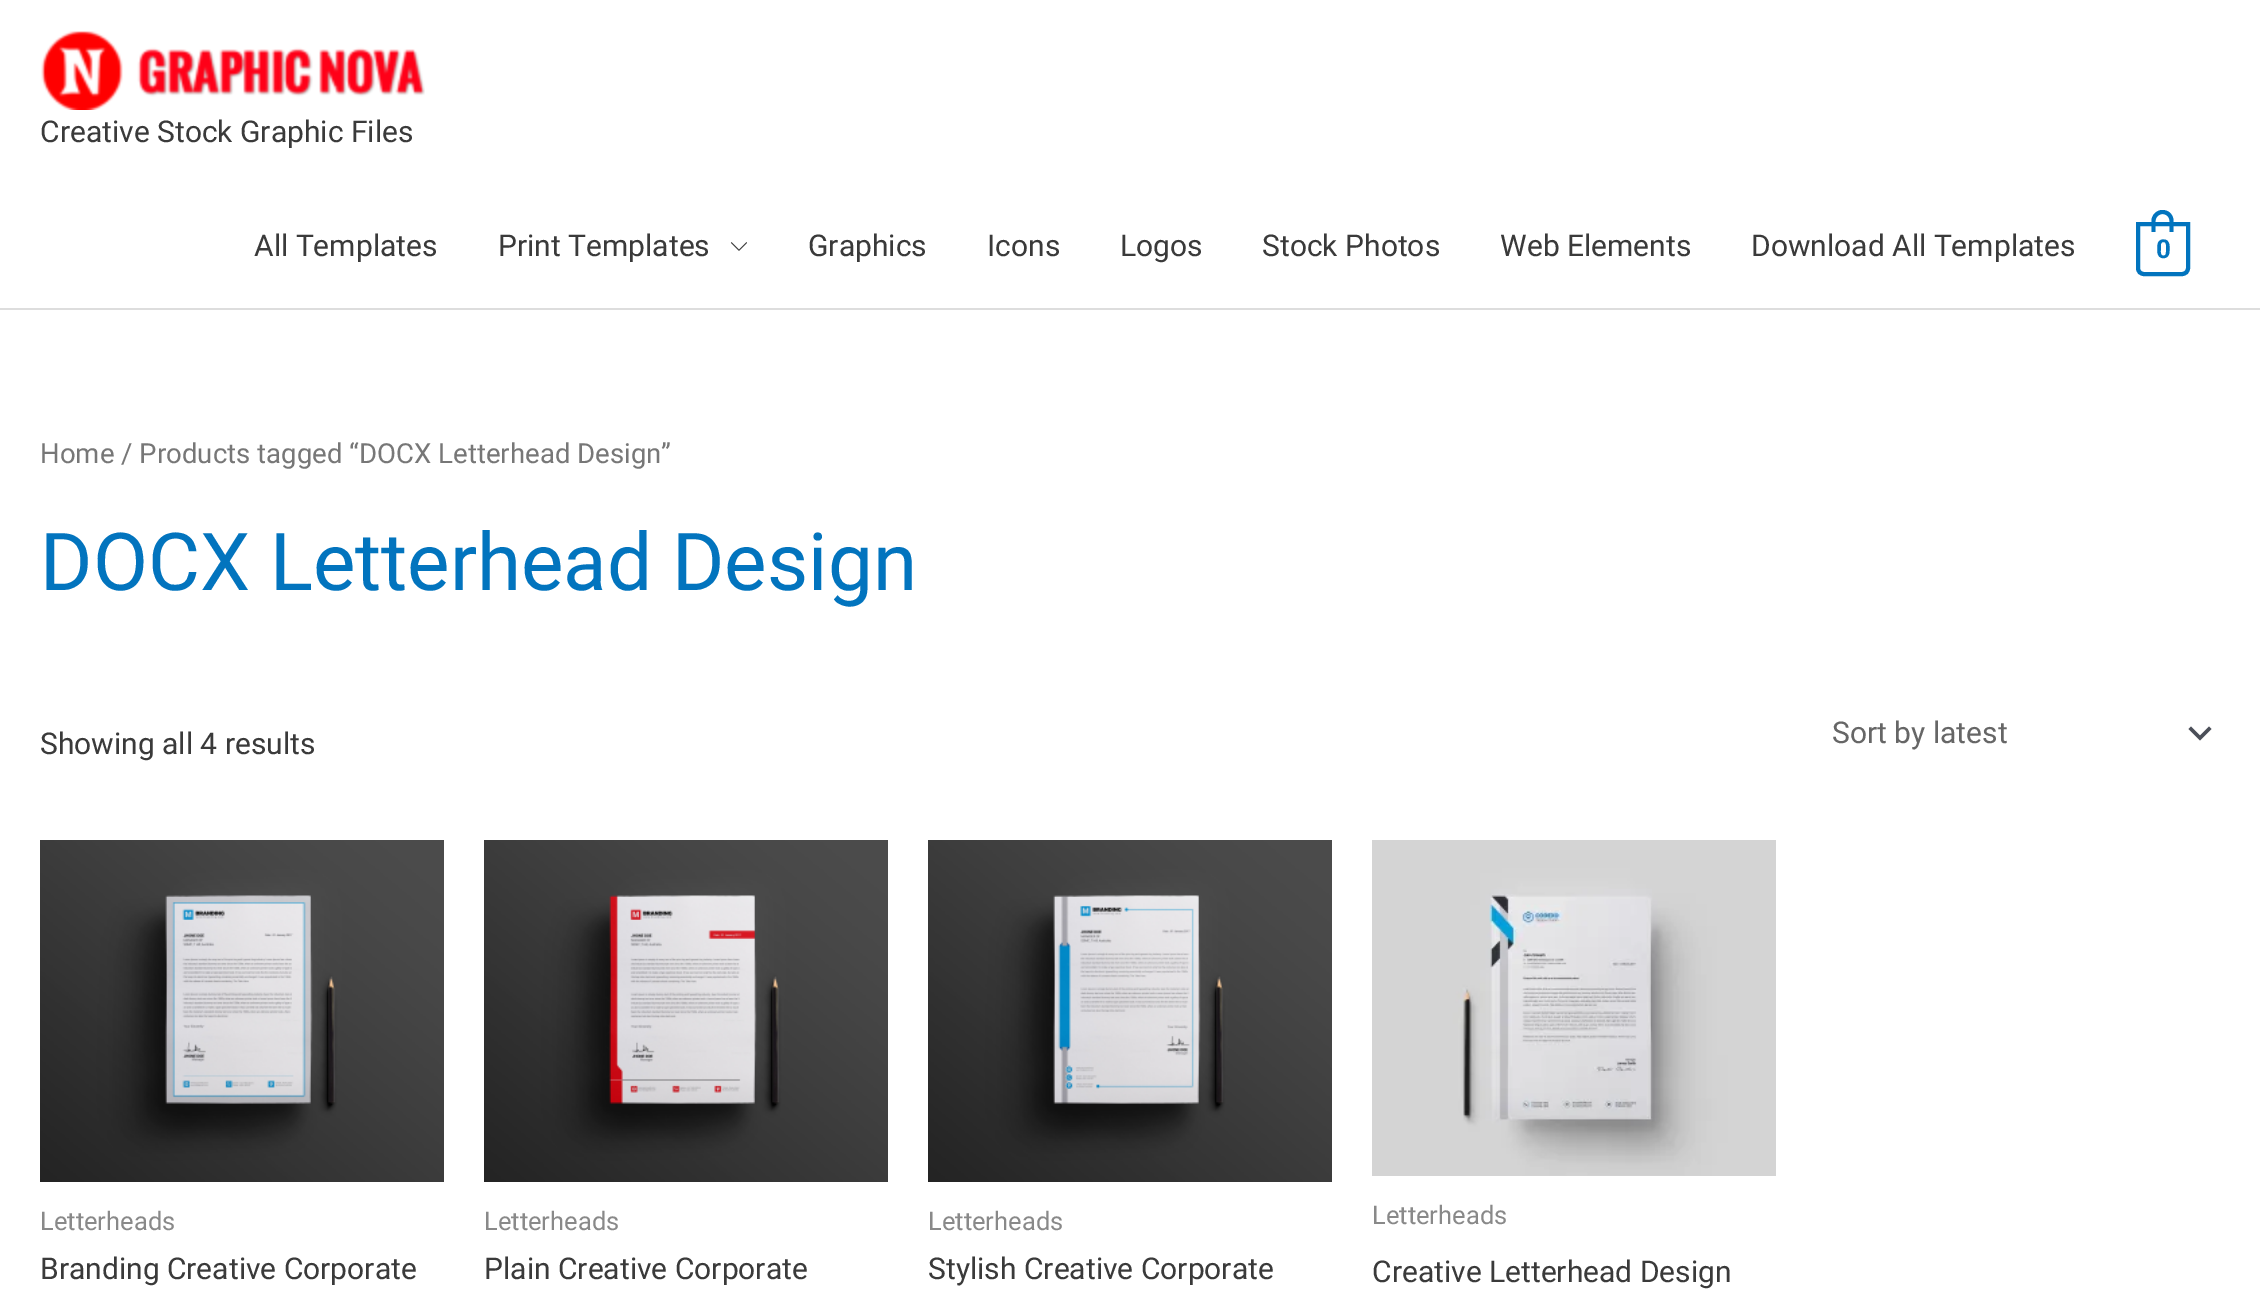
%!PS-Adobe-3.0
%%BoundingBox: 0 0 2260 1299
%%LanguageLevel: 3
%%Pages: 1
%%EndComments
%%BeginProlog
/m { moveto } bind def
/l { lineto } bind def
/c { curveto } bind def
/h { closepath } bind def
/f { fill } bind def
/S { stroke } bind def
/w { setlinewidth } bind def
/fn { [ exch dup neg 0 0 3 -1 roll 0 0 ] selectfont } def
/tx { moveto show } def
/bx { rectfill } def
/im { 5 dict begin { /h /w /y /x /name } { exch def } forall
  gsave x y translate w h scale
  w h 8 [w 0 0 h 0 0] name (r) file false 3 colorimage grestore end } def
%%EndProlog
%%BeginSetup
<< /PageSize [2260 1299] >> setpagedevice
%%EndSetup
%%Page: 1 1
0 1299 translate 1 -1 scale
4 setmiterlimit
1 setgray
0 0 2260 1299 bx
0.867 setgray
0 308 2260 2 bx
(image0.raw) 41 31 384 79 im
/Roboto-Regular 30 fn
0.227 setgray
(Creative Stock Graphic Files) 40 142 tx
(All Templates) 254 256 tx
(Print Templates) 498 256 tx
(image1.raw) 730 242 17 9 im
(Graphics) 808 256 tx
(Icons) 987 256 tx
(Logos) 1120 256 tx
(Stock Photos) 1262 256 tx
(Web Elements) 1500 256 tx
(Download All Templates) 1751 256 tx
0.008 0.455 0.745 setrgbcolor
4 w
2138 224 m 2188 224 l 2188 268 l 2188 271.5 2185.5 274 2182 274 c 2144 274 l 2140.5 274 2138 271.5 2138 268 c h S
2162.5 210 m 2169 210 2173.5 215 2173.5 221 c 2173.5 232 l 2151.5 232 l 2151.5 221 l 2151.5 215 2156.5 210 2162.5 210 c h 2162.5 214 m 2166.5 214 2169.5 217 2169.5 221 c 2169.5 232 l 2155.5 232 l 2155.5 221 l 2155.5 217 2159 214 2162.5 214 c h eofill
/Roboto-Bold 26 fn
(0) 2156 258 tx
/Roboto-Regular 27.6 fn
0.467 setgray
(Home / Products tagged “DOCX Letterhead Design”) 40 463 tx
/Roboto-Regular 80 fn
0.008 0.455 0.745 setrgbcolor
(DOCX Letterhead Design) 40 590 tx
/Roboto-Regular 30 fn
0.227 setgray
(Showing all 4 results) 40 754 tx
0.294 0.31 0.345 setrgbcolor
2188.5 729 m 2200 740.5 l 2211.5 729 l 2209 726.5 l 2200 735.5 l 2191 726.5 l h f
0.4 setgray
(Sort by latest) 1832 743 tx
(image2.raw) 40 840 404 342 im
/Roboto-Regular 25.5 fn
0.537 setgray
(Letterheads) 40 1230 tx
/Roboto-Regular 30 fn
0.227 setgray
(Branding Creative Corporate) 40 1279 tx
(image3.raw) 484 840 404 342 im
/Roboto-Regular 25.5 fn
0.537 setgray
(Letterheads) 484 1230 tx
/Roboto-Regular 30 fn
0.227 setgray
(Plain Creative Corporate) 484 1279 tx
(image4.raw) 928 840 404 342 im
/Roboto-Regular 25.5 fn
0.537 setgray
(Letterheads) 928 1230 tx
/Roboto-Regular 30 fn
0.227 setgray
(Stylish Creative Corporate) 928 1279 tx
(image5.raw) 1372 840 404 336 im
/Roboto-Regular 25.5 fn
0.537 setgray
(Letterheads) 1372 1224 tx
/Roboto-Regular 30 fn
0.227 setgray
(Creative Letterhead Design) 1372 1282 tx
showpage
%%EOF
